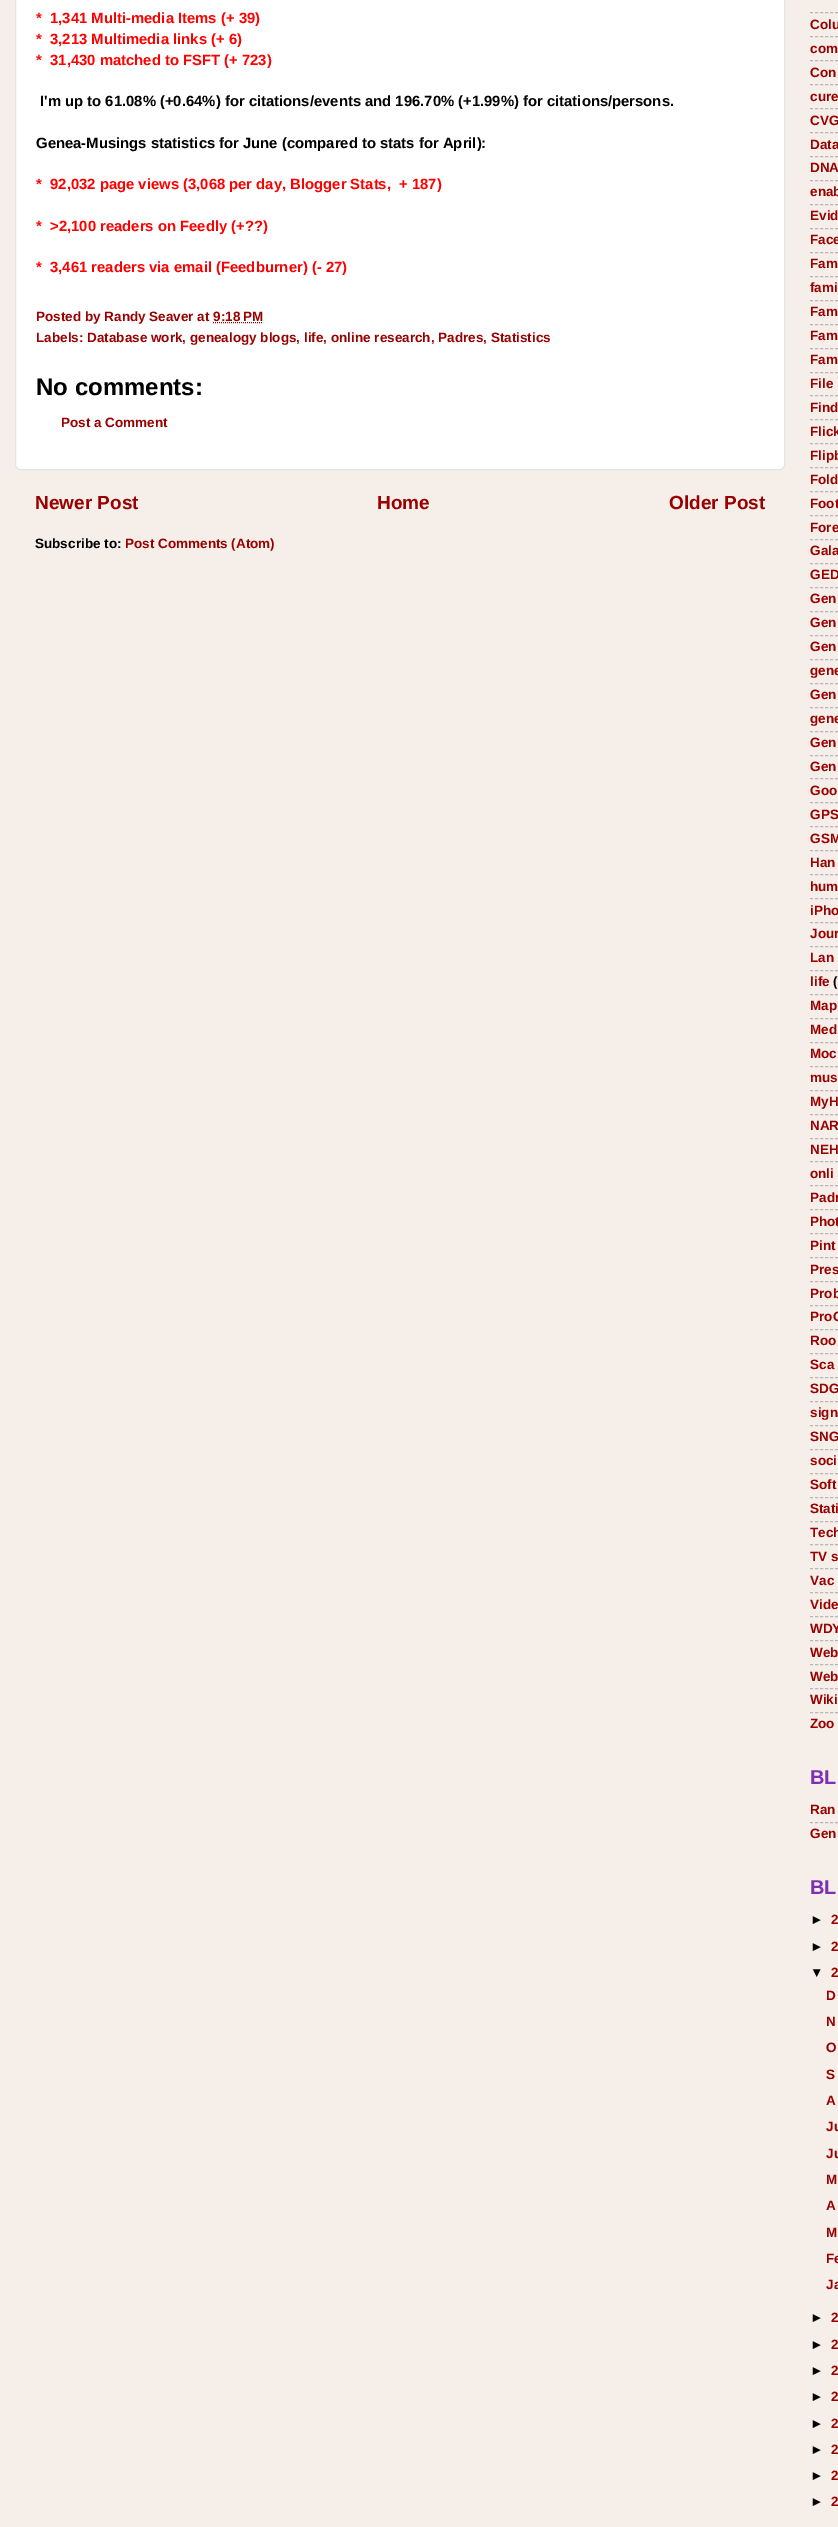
%!PS-Adobe-3.0
%%BoundingBox: 0 0 838 2527
%%LanguageLevel: 3
%%Pages: 1
%%EndComments
%%BeginProlog
/m { moveto } bind def
/l { lineto } bind def
/f { fill } bind def
/S { stroke } bind def
/q { gsave } bind def
/Q { grestore } bind def
/fn { [ exch dup neg 0 0 3 -1 roll 0 0 ] selectfont } def
/tx { moveto show } def
/bx { rectfill } def
/rr { 5 dict begin { /r /h /w /y /x } { exch def } forall
  x r add y moveto x w add y 2 copy h add r arct x w add y h add x 1 index r arct
  x y h add x y r arct x y 2 copy exch w add exch r arct closepath end } def
%%EndProlog
%%BeginSetup
<< /PageSize [838 2527] >> setpagedevice
%%EndSetup
%%Page: 1 1
0 2527 translate 1 -1 scale
4 setmiterlimit
0.961 0.933 0.914 setrgbcolor
0 0 838 2527 bx
1 setgray
15.5 -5.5 769 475 4.5 rr q f Q
0.898 setgray
S
/LiberationSans-Bold 14.85 fn
1 0 0 setrgbcolor
(*  1,341 Multi-media Items \(+ 39\)) 36 23 tx
(*  3,213 Multimedia links \(+ 6\)) 36 44 tx
(*  31,430 matched to FSFT \(+ 723\)) 36 65 tx
0 setgray
(I'm up to 61.08% \(+0.64%\) for citations/events and 196.70% \(+1.99%\) for citations/persons.) 40 106 tx
(Genea-Musings statistics for June \(compared to stats for April\):) 36 148 tx
1 0 0 setrgbcolor
(*  92,032 page views \(3,068 per day, Blogger Stats,  + 187\)) 36 189 tx
(*  >2,100 readers on Feedly \(+??\)) 36 231 tx
(*  3,461 readers via email \(Feedburner\) \(- 27\)) 36 272 tx
/LiberationSans-Bold 13.5 fn
0.6 0 0 setrgbcolor
(Posted by Randy Seaver at 9:18 PM) 36 321 tx
[1 1] 0 setdash
213 322.5 m 263 322.5 l S
(Labels: Database work, genealogy blogs, life, online research, Padres, Statistics) 36 342 tx
/LiberationSans-Bold 24 fn
0 setgray
(No comments:) 36 395 tx
/LiberationSans-Bold 13.5 fn
0.6 0 0 setrgbcolor
(Post a Comment) 61 427 tx
/LiberationSans-Bold 19 fn
(Newer Post) 35 509 tx
(Home) 377 509 tx
(Older Post) 669 509 tx
/LiberationSans-Bold 13.5 fn
0 setgray
(Subscribe to:) 35 548 tx
0.6 0 0 setrgbcolor
(Post Comments \(Atom\)) 125 548 tx
0.733 0.718 0.71 setrgbcolor
[3 2.03] 0 setdash
810 12.5 m 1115 12.5 l 810 36.5 m 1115 36.5 l 810 60.5 m 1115 60.5 l S
0.6 0 0 setrgbcolor
(Colu) 810 29 tx
(com) 810 53 tx
(Con) 810 77 tx
0.733 0.718 0.71 setrgbcolor
810 84.5 m 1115 84.5 l 810 108.5 m 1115 108.5 l 810 132.5 m 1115 132.5 l S
0.6 0 0 setrgbcolor
(cure) 810 101 tx
(CVG) 810 125 tx
(Data) 810 149 tx
0.733 0.718 0.71 setrgbcolor
810 156.5 m 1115 156.5 l 810 180.5 m 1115 180.5 l 810 204.5 m 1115 204.5 l S
0.6 0 0 setrgbcolor
(DNA) 810 172 tx
(enab) 810 196 tx
(Evid) 810 220 tx
0.733 0.718 0.71 setrgbcolor
810 228.5 m 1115 228.5 l 810 252.5 m 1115 252.5 l 810 276.5 m 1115 276.5 l S
0.6 0 0 setrgbcolor
(Face) 810 244 tx
(Fam) 810 268 tx
(fami) 810 292 tx
0.733 0.718 0.71 setrgbcolor
810 300.5 m 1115 300.5 l 810 324.5 m 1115 324.5 l 810 348.5 m 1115 348.5 l S
0.6 0 0 setrgbcolor
(Fam) 810 316 tx
(Fam) 810 340 tx
(Fam) 810 364 tx
0.733 0.718 0.71 setrgbcolor
810 372.5 m 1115 372.5 l 810 395.5 m 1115 395.5 l 810 419.5 m 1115 419.5 l S
0.6 0 0 setrgbcolor
(File) 810 388 tx
(Find) 810 412 tx
(Flick) 810 436 tx
0.733 0.718 0.71 setrgbcolor
810 443.5 m 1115 443.5 l 810 467.5 m 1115 467.5 l 810 491.5 m 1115 491.5 l S
0.6 0 0 setrgbcolor
(Flipb) 810 460 tx
(Fold) 810 484 tx
(Foot) 810 508 tx
0.733 0.718 0.71 setrgbcolor
810 515.5 m 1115 515.5 l 810 539.5 m 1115 539.5 l 810 563.5 m 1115 563.5 l S
0.6 0 0 setrgbcolor
(Fore) 810 532 tx
(Gala) 810 555 tx
(GED) 810 579 tx
0.733 0.718 0.71 setrgbcolor
810 587.5 m 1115 587.5 l 810 611.5 m 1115 611.5 l 810 635.5 m 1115 635.5 l S
0.6 0 0 setrgbcolor
(Gen) 810 603 tx
(Gen) 810 627 tx
(Gen) 810 651 tx
0.733 0.718 0.71 setrgbcolor
810 659.5 m 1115 659.5 l 810 683.5 m 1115 683.5 l 810 707.5 m 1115 707.5 l S
0.6 0 0 setrgbcolor
(gene) 810 675 tx
(Gen) 810 699 tx
(gene) 810 723 tx
0.733 0.718 0.71 setrgbcolor
810 731.5 m 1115 731.5 l 810 755.5 m 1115 755.5 l 810 778.5 m 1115 778.5 l S
0.6 0 0 setrgbcolor
(Gen) 810 747 tx
(Gen) 810 771 tx
(Goo) 810 795 tx
0.733 0.718 0.71 setrgbcolor
810 802.5 m 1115 802.5 l 810 826.5 m 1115 826.5 l 810 850.5 m 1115 850.5 l S
0.6 0 0 setrgbcolor
(GPS) 810 819 tx
(GSM) 810 843 tx
(Han) 810 867 tx
0.733 0.718 0.71 setrgbcolor
810 874.5 m 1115 874.5 l 810 898.5 m 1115 898.5 l 810 922.5 m 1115 922.5 l S
0.6 0 0 setrgbcolor
(hum) 810 891 tx
(iPho) 810 915 tx
(Jour) 810 938 tx
0.733 0.718 0.71 setrgbcolor
810 946.5 m 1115 946.5 l 810 970.5 m 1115 970.5 l 810 994.5 m 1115 994.5 l S
0.6 0 0 setrgbcolor
(Lan) 810 962 tx
(life) 810 986 tx
0 setgray
(\() 833 986 tx
0.6 0 0 setrgbcolor
(Map) 810 1010 tx
0.733 0.718 0.71 setrgbcolor
810 1018.5 m 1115 1018.5 l 810 1042.5 m 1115 1042.5 l 810 1066.5 m 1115 1066.5 l S
0.6 0 0 setrgbcolor
(Med) 810 1034 tx
(Moc) 810 1058 tx
(mus) 810 1082 tx
0.733 0.718 0.71 setrgbcolor
810 1090.5 m 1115 1090.5 l 810 1114.5 m 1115 1114.5 l 810 1138.5 m 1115 1138.5 l S
0.6 0 0 setrgbcolor
(MyH) 810 1106 tx
(NAR) 810 1130 tx
(NEH) 810 1154 tx
0.733 0.718 0.71 setrgbcolor
810 1161.5 m 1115 1161.5 l 810 1185.5 m 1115 1185.5 l 810 1209.5 m 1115 1209.5 l S
0.6 0 0 setrgbcolor
(onli) 810 1178 tx
(Padr) 810 1202 tx
(Phot) 810 1226 tx
0.733 0.718 0.71 setrgbcolor
810 1233.5 m 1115 1233.5 l 810 1257.5 m 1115 1257.5 l 810 1281.5 m 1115 1281.5 l S
0.6 0 0 setrgbcolor
(Pint) 810 1250 tx
(Pres) 810 1274 tx
(Prob) 810 1298 tx
0.733 0.718 0.71 setrgbcolor
810 1305.5 m 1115 1305.5 l 810 1329.5 m 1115 1329.5 l 810 1353.5 m 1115 1353.5 l S
0.6 0 0 setrgbcolor
(ProG) 810 1321 tx
(Roo) 810 1345 tx
(Sca) 810 1369 tx
0.733 0.718 0.71 setrgbcolor
810 1377.5 m 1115 1377.5 l 810 1401.5 m 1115 1401.5 l 810 1425.5 m 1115 1425.5 l S
0.6 0 0 setrgbcolor
(SDG) 810 1393 tx
(sign) 810 1417 tx
(SNG) 810 1441 tx
0.733 0.718 0.71 setrgbcolor
810 1449.5 m 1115 1449.5 l 810 1473.5 m 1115 1473.5 l 810 1497.5 m 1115 1497.5 l S
0.6 0 0 setrgbcolor
(soci) 810 1465 tx
(Soft) 810 1489 tx
(Stati) 810 1513 tx
0.733 0.718 0.71 setrgbcolor
810 1521.5 m 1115 1521.5 l 810 1544.5 m 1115 1544.5 l 810 1568.5 m 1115 1568.5 l S
0.6 0 0 setrgbcolor
(Tech) 810 1537 tx
(TV s) 810 1561 tx
(Vac) 810 1585 tx
0.733 0.718 0.71 setrgbcolor
810 1592.5 m 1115 1592.5 l 810 1616.5 m 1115 1616.5 l 810 1640.5 m 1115 1640.5 l S
0.6 0 0 setrgbcolor
(Vide) 810 1609 tx
(WDY) 810 1633 tx
(Web) 810 1657 tx
0.733 0.718 0.71 setrgbcolor
810 1664.5 m 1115 1664.5 l 810 1688.5 m 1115 1688.5 l 810 1712.5 m 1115 1712.5 l S
0.6 0 0 setrgbcolor
(Web) 810 1681 tx
(Wiki) 810 1704 tx
(Zoo) 810 1728 tx
/LiberationSans-Bold 20 fn
0.498 0.188 0.694 setrgbcolor
(BL) 810 1784 tx
/LiberationSans-Bold 13.5 fn
0.6 0 0 setrgbcolor
(Ran) 810 1814 tx
0.733 0.718 0.71 setrgbcolor
810 1822.5 m 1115 1822.5 l S
0.6 0 0 setrgbcolor
(Gen) 810 1838 tx
/LiberationSans-Bold 20 fn
0.498 0.188 0.694 setrgbcolor
(BL) 810 1894 tx
/LiberationSans-Bold 13.5 fn
0 setgray
(►) 810 1924 tx
0.6 0 0 setrgbcolor
(2) 831 1924 tx
0 setgray
(►) 810 1951 tx
0.6 0 0 setrgbcolor
(2) 831 1951 tx
0 setgray
(▼) 810 1977 tx
0.6 0 0 setrgbcolor
(2) 831 1977 tx
(D) 826 2000 tx
(N) 826 2026 tx
(O) 826 2052 tx
(S) 826 2079 tx
(A) 826 2105 tx
(Ju) 826 2131 tx
(Ju) 826 2158 tx
(M) 826 2184 tx
(A) 826 2210 tx
(M) 826 2237 tx
(Fe) 826 2263 tx
(Ja) 826 2289 tx
0 setgray
(►) 810 2322 tx
0.6 0 0 setrgbcolor
(2) 831 2322 tx
0 setgray
(►) 810 2349 tx
0.6 0 0 setrgbcolor
(2) 831 2349 tx
0 setgray
(►) 810 2375 tx
0.6 0 0 setrgbcolor
(2) 831 2375 tx
0 setgray
(►) 810 2401 tx
0.6 0 0 setrgbcolor
(2) 831 2401 tx
0 setgray
(►) 810 2428 tx
0.6 0 0 setrgbcolor
(2) 831 2428 tx
0 setgray
(►) 810 2454 tx
0.6 0 0 setrgbcolor
(2) 831 2454 tx
0 setgray
(►) 810 2480 tx
0.6 0 0 setrgbcolor
(2) 831 2480 tx
0 setgray
(►) 810 2506 tx
0.6 0 0 setrgbcolor
(2) 831 2506 tx
showpage
%%EOF
